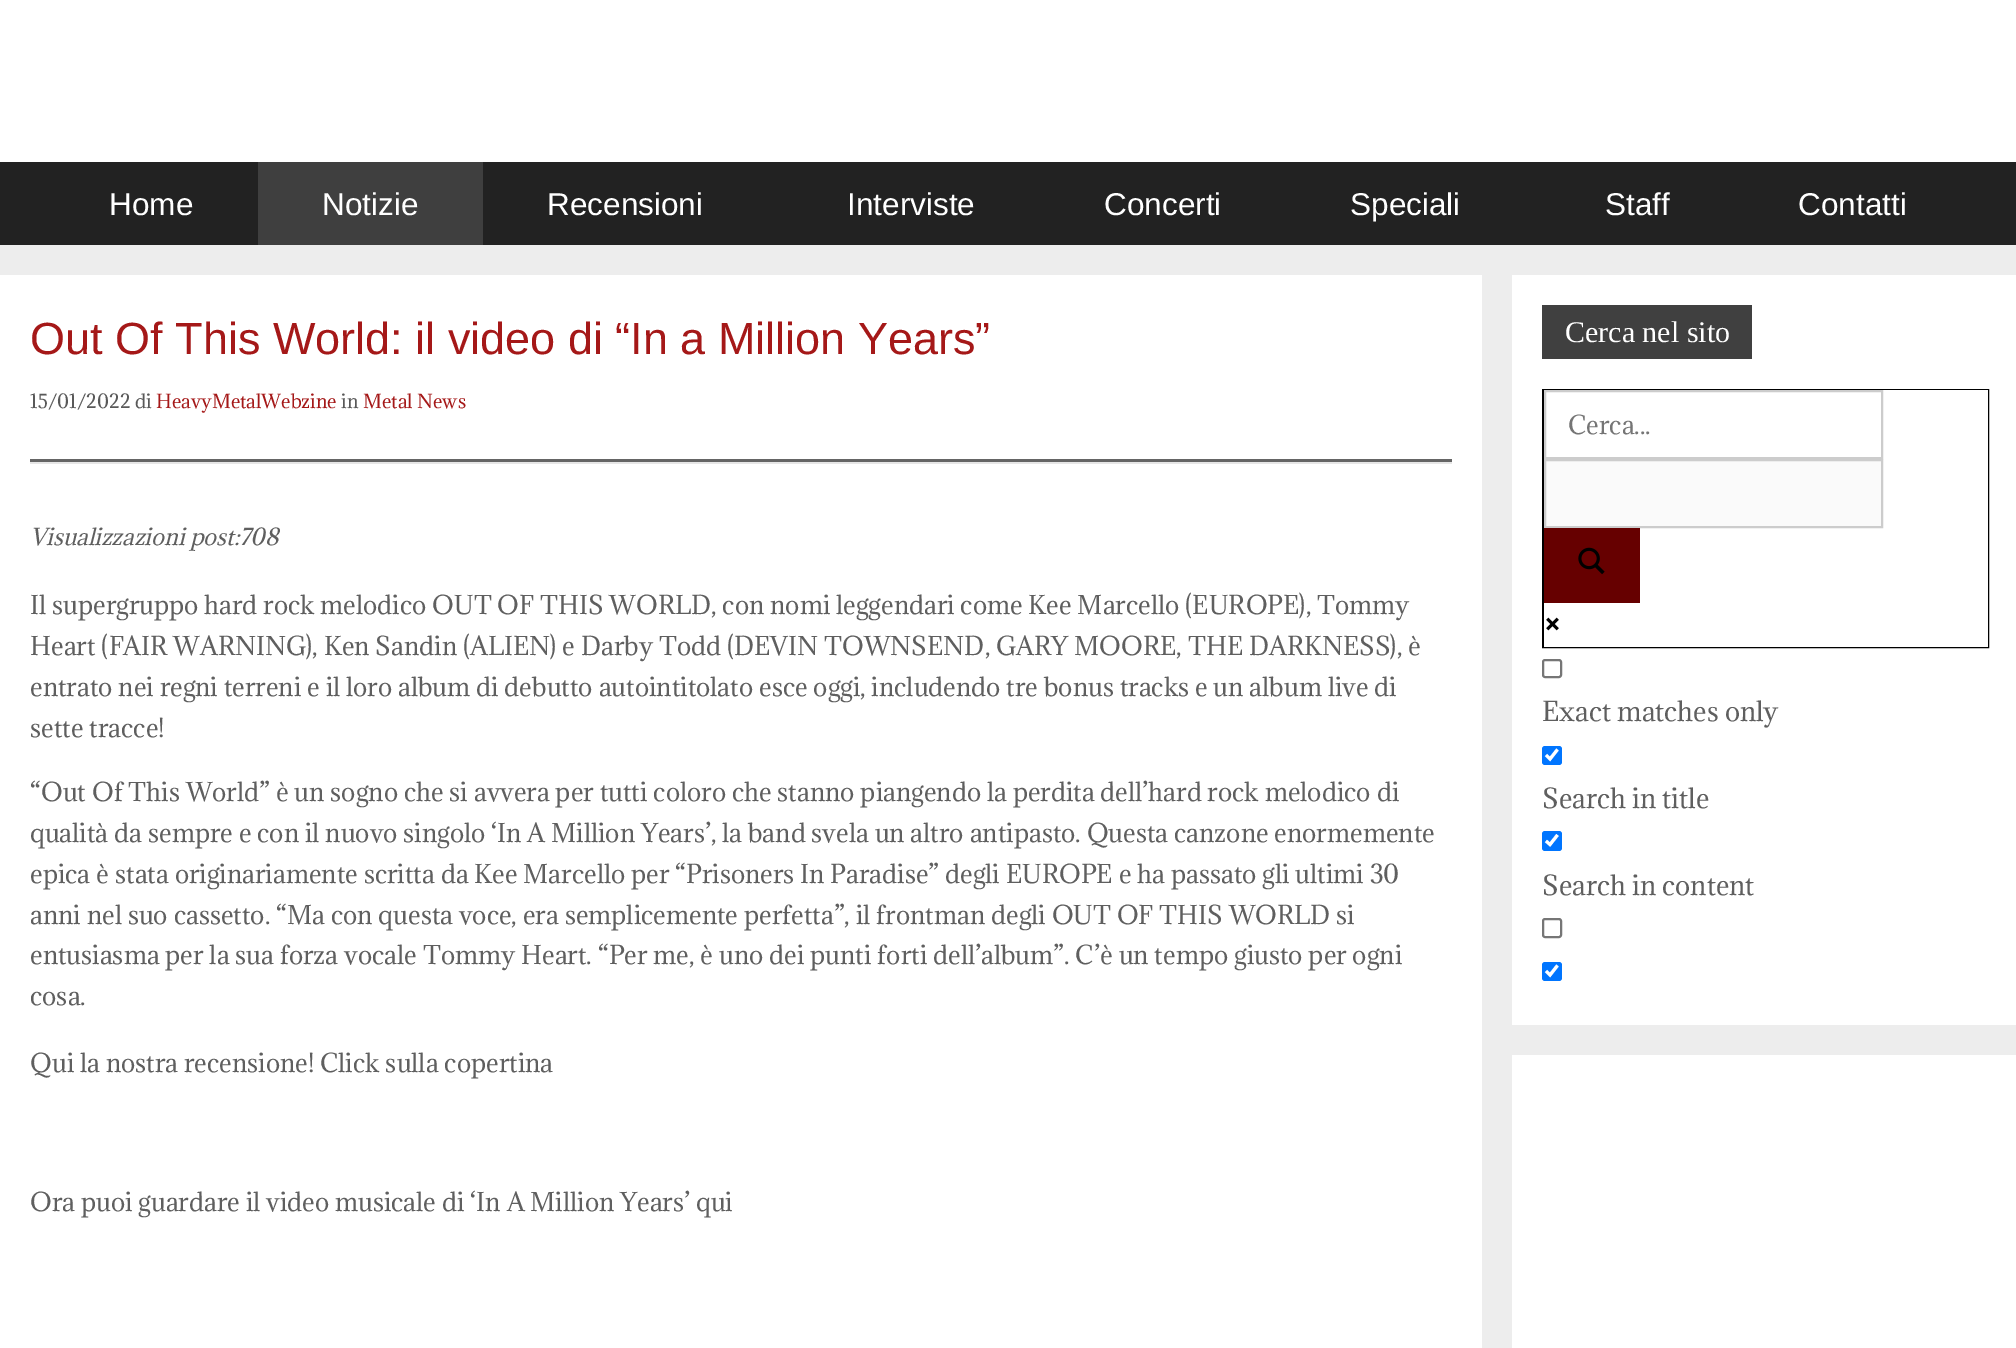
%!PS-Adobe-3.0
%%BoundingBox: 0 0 2016 1348
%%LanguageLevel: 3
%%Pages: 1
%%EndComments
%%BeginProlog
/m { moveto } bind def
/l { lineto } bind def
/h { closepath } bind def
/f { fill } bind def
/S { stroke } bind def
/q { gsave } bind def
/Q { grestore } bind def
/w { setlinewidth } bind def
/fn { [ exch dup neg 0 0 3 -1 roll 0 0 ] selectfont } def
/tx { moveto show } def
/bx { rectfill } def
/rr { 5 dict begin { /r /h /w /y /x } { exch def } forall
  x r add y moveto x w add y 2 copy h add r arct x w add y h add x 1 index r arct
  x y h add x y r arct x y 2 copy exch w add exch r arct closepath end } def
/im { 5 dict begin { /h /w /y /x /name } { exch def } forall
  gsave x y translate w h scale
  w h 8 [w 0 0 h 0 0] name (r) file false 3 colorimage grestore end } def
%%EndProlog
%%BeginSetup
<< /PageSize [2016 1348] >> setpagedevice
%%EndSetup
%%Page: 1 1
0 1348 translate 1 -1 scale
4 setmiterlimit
0.929 setgray
0 0 2016 1348 bx
1 setgray
0 0 2016 162 bx
0.133 setgray
0 162 2016 83 bx
/LiberationSans-Regular 31.5 fn
1 setgray
(Home) 109 215 tx
0.247 setgray
258 162 225 83 bx
1 setgray
(Notizie) 322 215 tx
(Recensioni) 547 215 tx
(Interviste) 847 215 tx
(Concerti) 1104 215 tx
(Speciali) 1350 215 tx
(Staff) 1605 215 tx
(Contatti) 1798 215 tx
0 275 1482 1073 bx
/LiberationSans-Regular 45 fn
0.647 0.094 0.094 setrgbcolor
(Out Of This World: il video di “In a Million Years”) 30 354 tx
/Adamina-Regular 18 fn
0.349 setgray
(15/01/2022 di) 30 408 tx
0.647 0.094 0.094 setrgbcolor
(HeavyMetalWebzine) 156 408 tx
0.349 setgray
(in) 341 408 tx
0.647 0.094 0.094 setrgbcolor
(Metal News) 363 408 tx
0.902 setgray
30 462 1422 2 bx
0.396 setgray
30 459 1422 3 bx
/Adamina-Italic 21.6 fn
0.373 setgray
(Visualizzazioni post:708) 30 545 tx
/Adamina-Regular 24 fn
(Il supergruppo hard rock melodico OUT OF THIS WORLD, con nomi leggendari come Kee Marcello \(EUROPE\), Tommy) 30 614 tx
(Heart \(FAIR WARNING\), Ken Sandin \(ALIEN\) e Darby Todd \(DEVIN TOWNSEND, GARY MOORE, THE DARKNESS\), è) 30 655 tx
(entrato nei regni terreni e il loro album di debutto autointitolato esce oggi, includendo tre bonus tracks e un album live di) 30 696 tx
(sette tracce!) 30 737 tx
(“Out Of This World” è un sogno che si avvera per tutti coloro che stanno piangendo la perdita dell’hard rock melodico di) 30 801 tx
(qualità da sempre e con il nuovo singolo ‘In A Million Years’, la band svela un altro antipasto. Questa canzone enormemente) 30 842 tx
(epica è stata originariamente scritta da Kee Marcello per “Prisoners In Paradise” degli EUROPE e ha passato gli ultimi 30) 30 883 tx
(anni nel suo cassetto. “Ma con questa voce, era semplicemente perfetta”, il frontman degli OUT OF THIS WORLD si) 30 924 tx
(entusiasma per la sua forza vocale Tommy Heart. “Per me, è uno dei punti forti dell’album”. C’è un tempo giusto per ogni) 30 964 tx
(cosa.) 30 1005 tx
(Qui la nostra recensione! Click sulla copertina) 30 1072 tx
(Ora puoi guardare il video musicale di ‘In A Million Years’ qui) 30 1211 tx
1 setgray
1512 275 504 750 bx
0.251 setgray
1542 305 210 54 bx
/LiberationSerif-Regular 30 fn
1 setgray
(Cerca nel sito) 1565 342 tx
0 setgray
2 w
1543 390 445 257 rectstroke
1 setgray
1544 390 444 257 bx
0.8 setgray
1545 391 337 67 rectstroke
/Adamina-Regular 24 fn
0.459 setgray
(Cerca...) 1568 434 tx
0.98 setgray
1545 460 m 1882 460 l 1882 527 l 1545 527 l h q f Q
0.8 setgray
S
0.4 0 0 setrgbcolor
1544 528 96 75 bx
(image0.raw) 1578 547 27 28 im
(image1.raw) 1546 617 13 14 im
0.463 setgray
1543 660 18 17 2 rr S
/Adamina-Regular 25.5 fn
0.373 setgray
(Exact matches only) 1542 721 tx
0 0.459 1 setrgbcolor
1542 746 20 19 3 rr f
1 setgray
3.1 w
1546 755 m 1550 759 l 1557.5 749.5 l S
0.373 setgray
(Search in title) 1542 808 tx
0 0.459 1 setrgbcolor
1542 831 20 20 3 rr f
1 setgray
1546 841 m 1550 844.5 l 1557.5 835 l S
0.373 setgray
(Search in content) 1542 895 tx
0.463 setgray
2 w
1543 919 18 18 2 rr S
0 0.459 1 setrgbcolor
1542 962 20 19 3 rr f
1 setgray
3.1 w
1546 971 m 1550 975 l 1557.5 965.5 l S
1512 1055 504 293 bx
showpage
%%EOF
